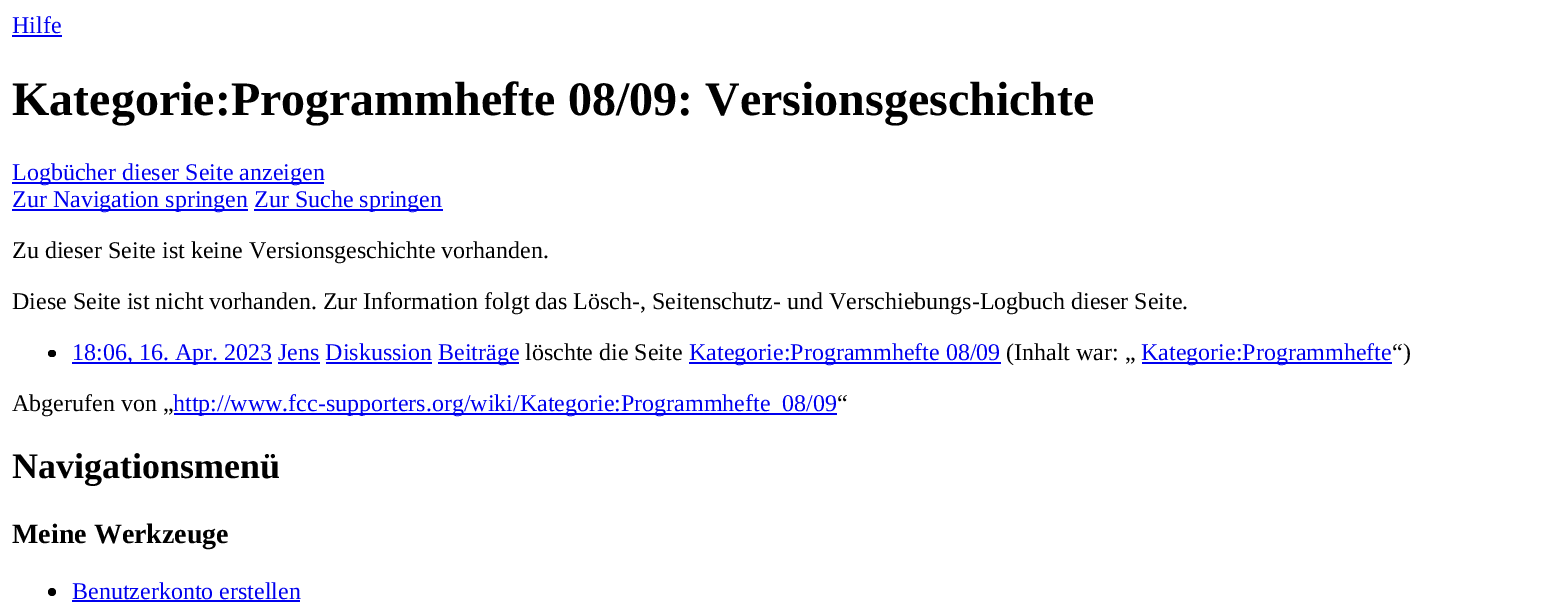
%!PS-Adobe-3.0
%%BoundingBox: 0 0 1548 608
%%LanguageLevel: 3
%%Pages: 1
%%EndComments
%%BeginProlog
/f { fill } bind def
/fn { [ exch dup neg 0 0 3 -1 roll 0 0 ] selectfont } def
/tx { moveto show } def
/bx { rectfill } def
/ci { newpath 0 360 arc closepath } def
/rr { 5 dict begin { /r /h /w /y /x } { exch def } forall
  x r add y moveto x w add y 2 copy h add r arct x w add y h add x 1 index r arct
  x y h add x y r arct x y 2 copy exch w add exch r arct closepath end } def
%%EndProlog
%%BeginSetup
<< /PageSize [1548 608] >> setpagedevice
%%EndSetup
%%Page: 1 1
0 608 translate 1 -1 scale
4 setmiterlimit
1 setgray
0 0 1548 608 bx
/LiberationSerif-Regular 24 fn
0 0 0.933 setrgbcolor
(Hilfe) 12 33 tx
12 35 50 2 bx
/LiberationSerif-Bold 48 fn
0 setgray
(Kategorie:Programmhefte 08/09: Versionsgeschichte) 12 115 tx
0 0 0.933 setrgbcolor
12 182 312 2 bx
/LiberationSerif-Regular 24 fn
(Logbücher dieser Seite anzeigen) 12 180 tx
12 209 236 2 bx
(Zur Navigation springen) 12 207 tx
254 209 189 2 bx
(Zur Suche springen) 254 207 tx
0 setgray
(Zu dieser Seite ist keine Versionsgeschichte vorhanden.) 12 258 tx
(Diese Seite ist nicht vorhanden. Zur Information folgt das Lösch-, Seitenschutz- und Verschiebungs-Logbuch dieser Seite.) 12 309 tx
48 350 8 7 3.5 rr f
0 0 0.933 setrgbcolor
72 362 200 2 bx
(18:06, 16. Apr. 2023 Jens Diskussion) 72 360 tx
438 362 81 2 bx
(Beiträge) 438 360 tx
326 362 106 2 bx
0 setgray
(löschte die Seite) 525 360 tx
0 0 0.933 setrgbcolor
689 362 312 2 bx
(Kategorie:Programmhefte 08/09) 689 360 tx
0 setgray
(\(Inhalt war: „) 1006 360 tx
0 0 0.933 setrgbcolor
1142 362 250 2 bx
(Kategorie:Programmhefte) 1141 360 tx
0 setgray
(“\)) 1392 360 tx
0 0 0.933 setrgbcolor
278 362 42 2 bx
0 setgray
(Abgerufen von „) 12 411 tx
0 0 0.933 setrgbcolor
174 413 663 2 bx
(http://www.fcc-supporters.org/wiki/Kategorie:Programmhefte_08/09) 173 411 tx
0 setgray
(“) 837 411 tx
/LiberationSerif-Bold 36 fn
(Navigationsmenü) 12 478 tx
/LiberationSerif-Bold 28 fn
(Meine Werkzeuge) 12 543 tx
52 592 4 ci f
/LiberationSerif-Regular 24 fn
0 0 0.933 setrgbcolor
(Benutzerkonto erstellen) 72 599 tx
72 600 228 2 bx
showpage
%%EOF
